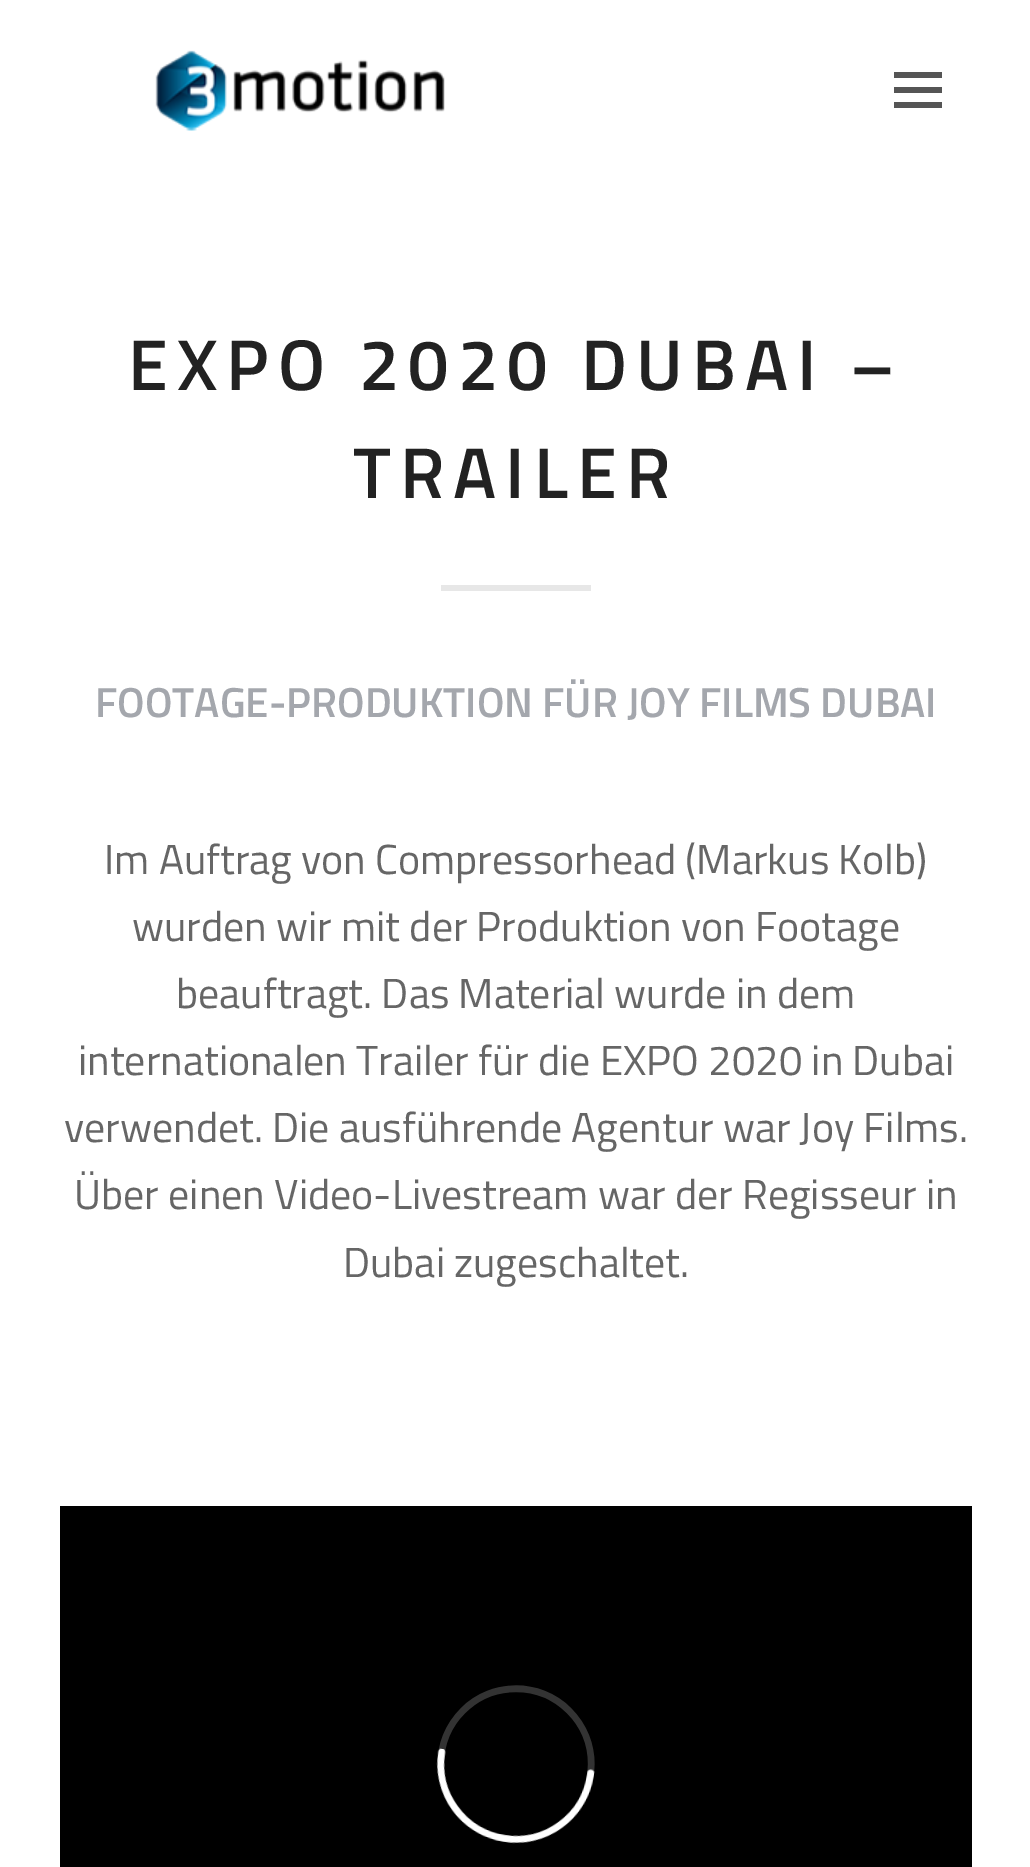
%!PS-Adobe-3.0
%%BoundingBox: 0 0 1030 1867
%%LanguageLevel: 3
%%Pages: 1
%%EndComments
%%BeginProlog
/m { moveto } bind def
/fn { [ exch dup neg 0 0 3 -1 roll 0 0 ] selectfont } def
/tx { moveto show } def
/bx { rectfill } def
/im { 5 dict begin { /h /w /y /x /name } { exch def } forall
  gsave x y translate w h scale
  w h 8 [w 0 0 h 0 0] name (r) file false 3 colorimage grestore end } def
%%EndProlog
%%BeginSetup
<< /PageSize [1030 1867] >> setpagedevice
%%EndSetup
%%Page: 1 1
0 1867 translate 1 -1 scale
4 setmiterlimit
1 setgray
0 0 1030 1867 bx
(image0.raw) 155 50 290 81 im
0.333 setgray
894 72 48 6 bx
894 87 48 6 bx
894 102 48 6 bx
/TitilliumWeb-SemiBold 72 fn
0.133 setgray
128 390 m 9 0 (EXPO 2020 DUBAI –) ashow
353 498 m 9 0 (TRAILER) ashow
0.906 setgray
441 585 150 6 bx
/TitilliumWeb-SemiBold 42 fn
0.643 0.655 0.678 setrgbcolor
(FOOTAGE-PRODUKTION FÜR JOY FILMS DUBAI) 95 717 tx
/TitilliumWeb-Regular 42 fn
0.4 setgray
(Im Auftrag von Compressorhead \(Markus Kolb\)) 104 874 tx
(wurden wir mit der Produktion von Footage) 132 941 tx
(beauftragt. Das Material wurde in dem) 176 1008 tx
(internationalen Trailer für die EXPO 2020 in Dubai) 78 1075 tx
(verwendet. Die ausführende Agentur war Joy Films.) 64 1142 tx
(Über einen Video-Livestream war der Regisseur in) 74 1209 tx
(Dubai zugeschaltet.) 343 1277 tx
(image1.raw) 60 1506 912 361 im
showpage
%%EOF
